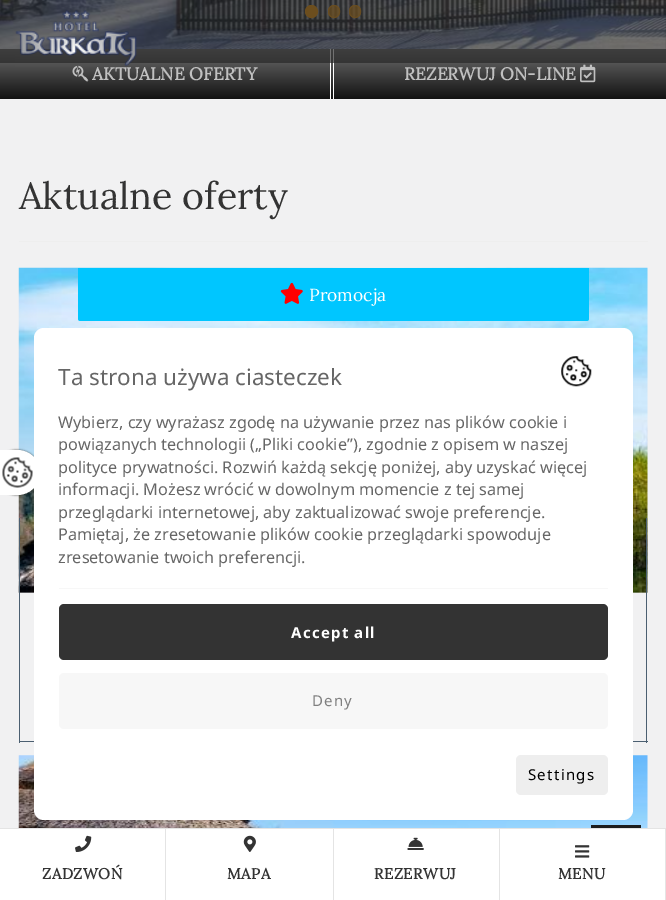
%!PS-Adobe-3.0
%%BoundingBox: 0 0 666 900
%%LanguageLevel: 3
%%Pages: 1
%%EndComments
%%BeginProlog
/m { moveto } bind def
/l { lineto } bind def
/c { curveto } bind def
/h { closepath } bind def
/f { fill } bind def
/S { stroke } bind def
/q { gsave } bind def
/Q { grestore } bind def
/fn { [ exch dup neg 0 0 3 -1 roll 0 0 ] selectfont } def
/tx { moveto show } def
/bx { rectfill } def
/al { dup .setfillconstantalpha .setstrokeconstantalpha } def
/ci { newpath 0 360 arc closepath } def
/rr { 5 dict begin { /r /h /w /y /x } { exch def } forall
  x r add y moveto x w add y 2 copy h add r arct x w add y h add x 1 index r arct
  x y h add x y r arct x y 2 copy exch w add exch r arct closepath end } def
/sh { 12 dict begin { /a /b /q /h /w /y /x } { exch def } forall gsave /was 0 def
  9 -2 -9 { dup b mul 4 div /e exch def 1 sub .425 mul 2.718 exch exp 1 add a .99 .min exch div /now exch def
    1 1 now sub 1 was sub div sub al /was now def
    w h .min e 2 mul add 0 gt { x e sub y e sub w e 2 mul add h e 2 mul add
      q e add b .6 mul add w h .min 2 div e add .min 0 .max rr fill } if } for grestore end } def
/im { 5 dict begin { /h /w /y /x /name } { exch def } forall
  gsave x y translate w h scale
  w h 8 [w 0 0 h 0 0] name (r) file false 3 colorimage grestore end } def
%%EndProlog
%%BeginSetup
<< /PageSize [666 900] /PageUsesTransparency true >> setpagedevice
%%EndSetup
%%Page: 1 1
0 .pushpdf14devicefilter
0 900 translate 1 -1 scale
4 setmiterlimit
0.945 0.945 0.949 setrgbcolor
0 0 666 900 bx
(image0.raw) 0 0 666 49 im
0.424 0.306 0.118 setrgbcolor
311.5 11.5 6 ci q f Q
S
0.7 al
328 5 12 13 6 rr f
328.5 5.5 11 12 5.5 rr S
349 5 12 13 6 rr f
349.5 5.5 11 12 5.5 rr S
1 al
q 0 63 m 666 63 l 666 99 l 0 99 l h clip newpath
<< /ShadingType 2 /ColorSpace /DeviceRGB /Coords [333 39 333 109] /Extend [true true] /Function << /FunctionType 2 /Domain [0 1] /C0 [0.502 0.502 0.502] /C1 [0 0 0] /N 1 >> >> shfill Q
q 0 49 m 666 49 l 666 63 l 0 63 l h clip newpath
<< /ShadingType 2 /ColorSpace /DeviceRGB /Coords [333 39 333 109] /Extend [true true] /Function << /FunctionType 2 /Domain [0 1] /C0 [0.267 0.267 0.267] /C1 [0.09 0.09 0.09] /N 1 >> >> shfill Q
(image2.raw) 72 65 17 17 im
(image1.raw) 15 10 122 57 im
1 setgray
330 63 1 36 bx
0.443 setgray
330 49 1 14 bx
1 setgray
333 63 1 36 bx
0.443 setgray
333 49 1 14 bx
/Lora-Bold 17.5 fn
0.753 setgray
(AKTUALNE OFERTY) 92 80 tx
(REZERWUJ ON-LINE) 404 80 tx
(image3.raw) 580 64 16 19 im
/Lora-Regular 37.5 fn
0.2 setgray
(Aktualne oferty) 19 209 tx
0.933 setgray
19 241 629 1 bx
(image4.raw) 18 267 630 326 im
0 0.776 1 setrgbcolor
78 268 m 589 268 l 589 318.5 l 589 320 588 321 586.5 321 c 80.5 321 l 79 321 78 320 78 318.5 c h f
(image5.raw) 280 282 23 22 im
/Lora-Regular 17.5 fn
1 setgray
(Promocja) 309 301 tx
0.294 0.373 0.443 setrgbcolor
646 518 1 225 bx
19 741 629 1 bx
19 518 1 225 bx
(image6.raw) 18 755 630 73 im
0 setgray
-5 450 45 45 22.5 1 0.66 sh
1 setgray
-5 450 m 17.5 450 l 30 450 40 460 40 472.5 c 40 485 30 495 17.5 495 c -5 495 l h f
(image7.raw) 2 457 31 31 im
34 328 599 492 10 rr f
/NotoSans-Regular 22.5 fn
0.4 setgray
(Ta strona używa ciasteczek) 58 385 tx
(image8.raw) 561 356 31 31 im
/NotoSans-Regular 16.25 fn
(Wybierz, czy wyrażasz zgodę na używanie przez nas plików cookie i) 58 428 tx
(powiązanych technologii \(„Pliki cookie”\), zgodnie z opisem w naszej) 58 450 tx
(polityce prywatności. Rozwiń każdą sekcję poniżej, aby uzyskać więcej) 58 473 tx
(informacji. Możesz wrócić w dowolnym momencie z tej samej) 58 495 tx
(przeglądarki internetowej, aby zaktualizować swoje preferencje.) 58 518 tx
(Pamiętaj, że zresetowanie plików cookie przeglądarki spowoduje) 58 540 tx
(zresetowanie twoich preferencji.) 58 563 tx
0.969 setgray
59 588 549 1 bx
0.2 setgray
59 604 549 56 5 rr f
/NotoSans-Bold 15 fn
1 setgray
291 638 m 1.25 0 (Accept all) ashow
0.969 setgray
59 673 549 56 5 rr f
/NotoSans-Regular 15 fn
0.502 setgray
312 706 m 1.25 0 (Deny) ashow
0.933 setgray
516 755 92 40 5 rr f
0 setgray
528 780 m 1.25 0 (Settings) ashow
0.114 setgray
591 825 50 3 bx
1 setgray
0 829 665 71 bx
0.894 setgray
0 828 666 1 bx
165 829 1 71 bx
(image9.raw) 75 835 17 17 im
/Lora-Bold 15 fn
0.2 setgray
42 879 m 0.5 0 (ZADZWOŃ) ashow
0.894 setgray
333 829 1 71 bx
(image10.raw) 243 835 13 17 im
0.2 setgray
227 879 m 0.5 0 (MAPA) ashow
0.894 setgray
499 829 1 71 bx
(image11.raw) 407 837 17 13 im
0.2 setgray
374 879 m 0.5 0 (REZERWUJ) ashow
0.894 setgray
665 829 1 71 bx
(image12.raw) 575 845 15 13 im
0.2 setgray
558 879 m 0.5 0 (MENU) ashow
.poppdf14devicefilter showpage
%%EOF
